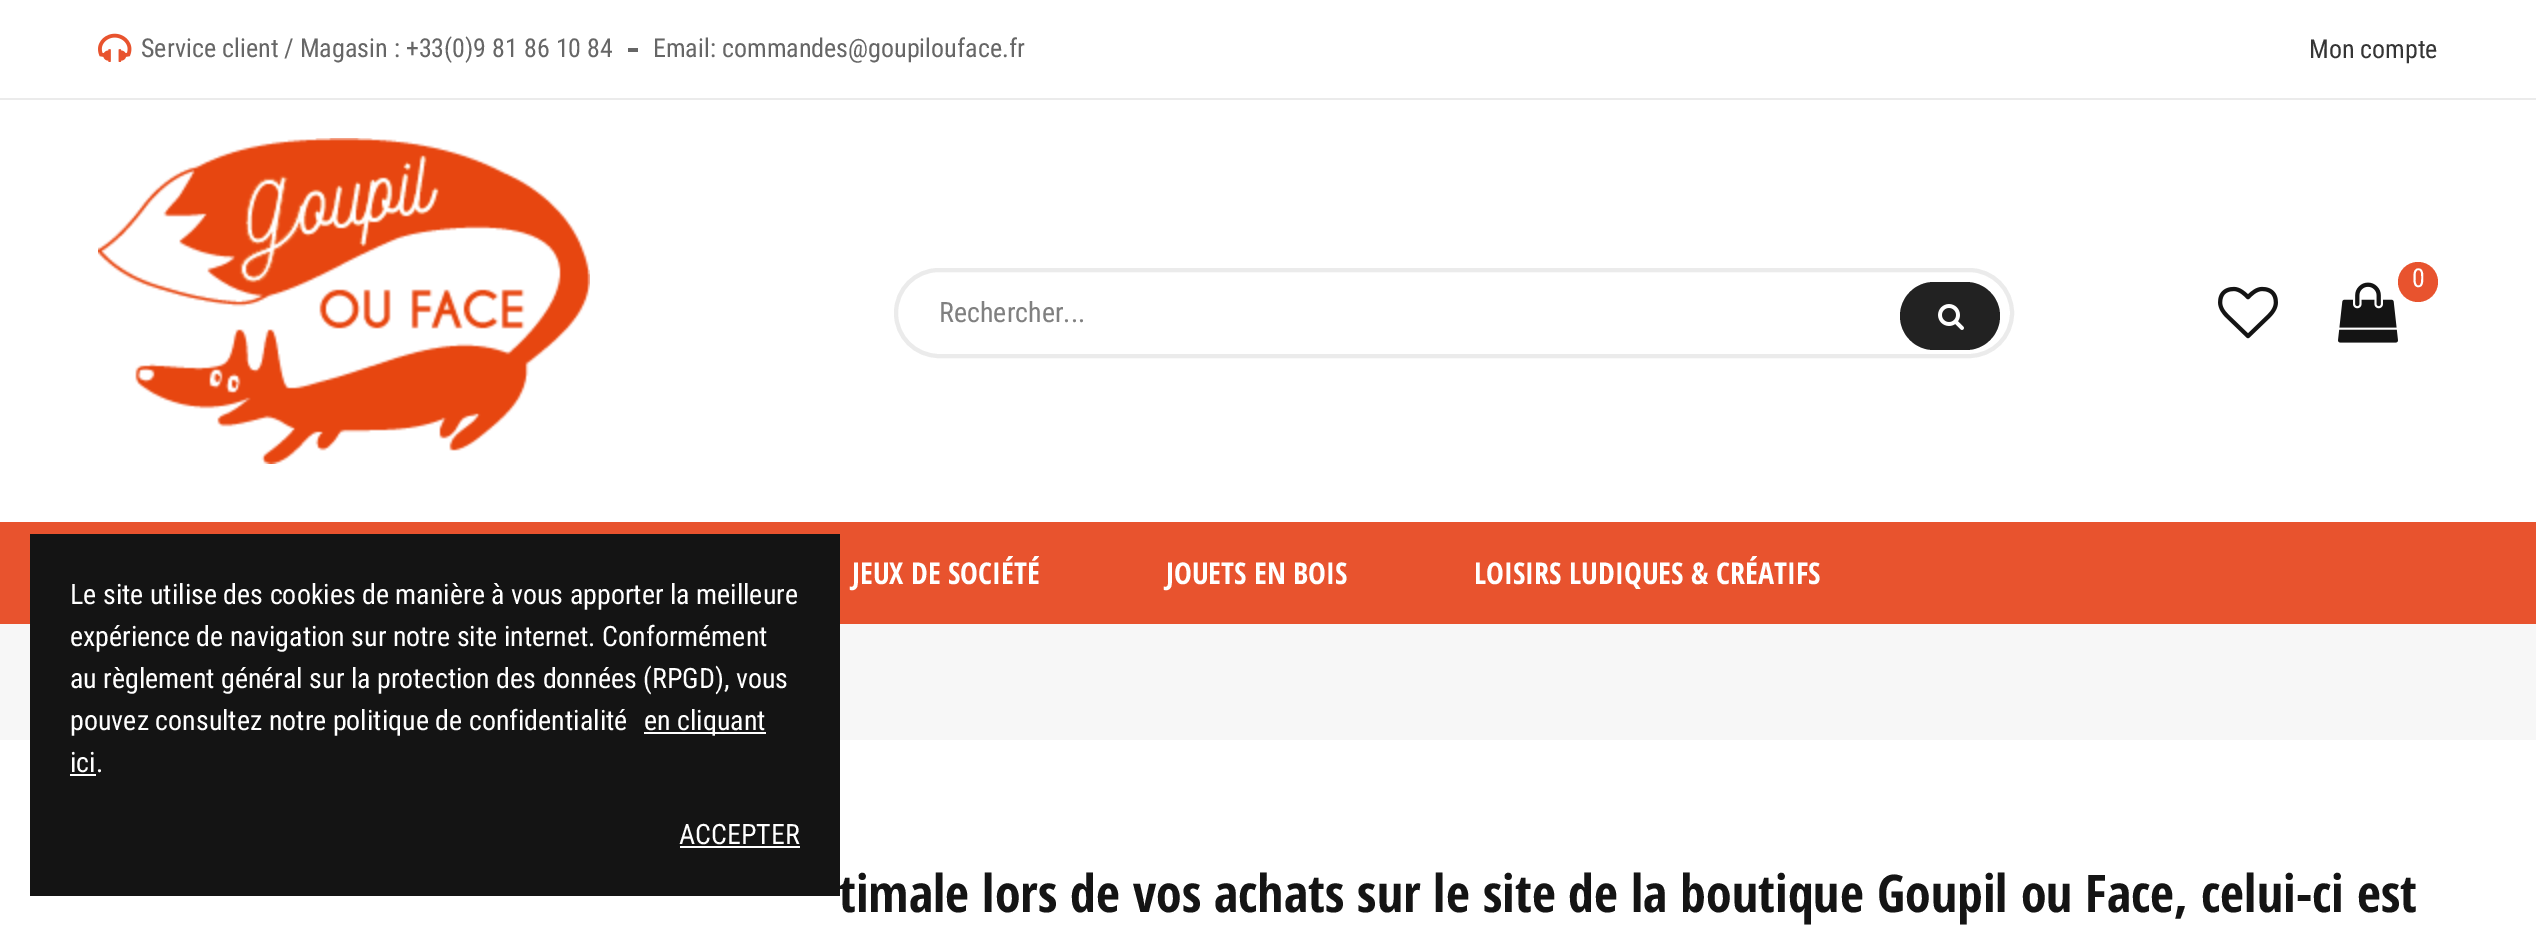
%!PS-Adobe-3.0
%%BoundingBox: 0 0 2536 925
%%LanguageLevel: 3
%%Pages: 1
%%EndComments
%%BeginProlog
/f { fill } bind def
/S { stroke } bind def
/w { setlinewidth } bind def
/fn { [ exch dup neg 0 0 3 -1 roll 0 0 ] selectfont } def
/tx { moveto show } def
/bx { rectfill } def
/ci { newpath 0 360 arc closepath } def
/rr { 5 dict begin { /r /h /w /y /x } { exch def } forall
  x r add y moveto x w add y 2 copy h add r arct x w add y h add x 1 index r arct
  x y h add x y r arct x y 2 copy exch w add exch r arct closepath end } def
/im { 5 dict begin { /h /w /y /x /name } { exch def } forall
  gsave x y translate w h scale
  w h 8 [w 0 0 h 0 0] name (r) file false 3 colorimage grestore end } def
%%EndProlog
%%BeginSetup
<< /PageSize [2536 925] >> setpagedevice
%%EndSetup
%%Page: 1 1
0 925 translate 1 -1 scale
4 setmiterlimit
1 setgray
0 0 2536 925 bx
0.922 setgray
0 98 2536 2 bx
(image0.raw) 98 33 34 29 im
/RobotoCondensed-Regular 26 fn
0.4 setgray
(Service client / Magasin : +33\(0\)9 81 86 10 84) 141 57 tx
628 48 10 4 bx
(Email: commandes@goupilouface.fr) 653 57 tx
0.208 setgray
(Mon compte) 2309 58 tx
(image1.raw) 98 138 492 326 im
0.91 0.325 0.18 setrgbcolor
2418 282 20 ci f
1 setgray
(0) 2412 287 tx
(image2.raw) 2338 282 60 61 im
(image3.raw) 2218 286 60 53 im
0.922 setgray
4 w
896 270 1116 86 43 rr S
/RobotoCondensed-Regular 28 fn
0.502 setgray
(Rechercher...) 939 322 tx
0.133 setgray
1900 282 100 68 34 rr f
(image4.raw) 1938 304 26 26 im
0.91 0.325 0.18 setrgbcolor
0 522 2536 102 bx
/OpenSansCondensed-Bold 30 fn
1 setgray
(JEUX DE SOCIÉTÉ) 852 584 tx
(JOUETS EN BOIS) 1166 584 tx
(LOISIRS LUDIQUES & CRÉATIFS) 1474 584 tx
0.969 setgray
0 624 2536 116 bx
/OpenSansCondensed-Bold 52 fn
0.078 setgray
(timale lors de vos achats sur le site de la boutique Goupil ou Face, celui-ci est) 839 912 tx
30 534 810 362 bx
/RobotoCondensed-Regular 28 fn
1 setgray
(Le site utilise des cookies de manière à vous apporter la meilleure) 70 604 tx
(expérience de navigation sur notre site internet. Conformément) 70 646 tx
(au règlement général sur la protection des données \(RPGD\), vous) 70 688 tx
(pouvez consultez notre politique de confidentialité) 70 730 tx
644 732 122 2 bx
(en cliquant) 644 730 tx
(ici.) 70 772 tx
70 774 26 2 bx
(ACCEPTER) 679 844 tx
680 846 120 2 bx
showpage
%%EOF
